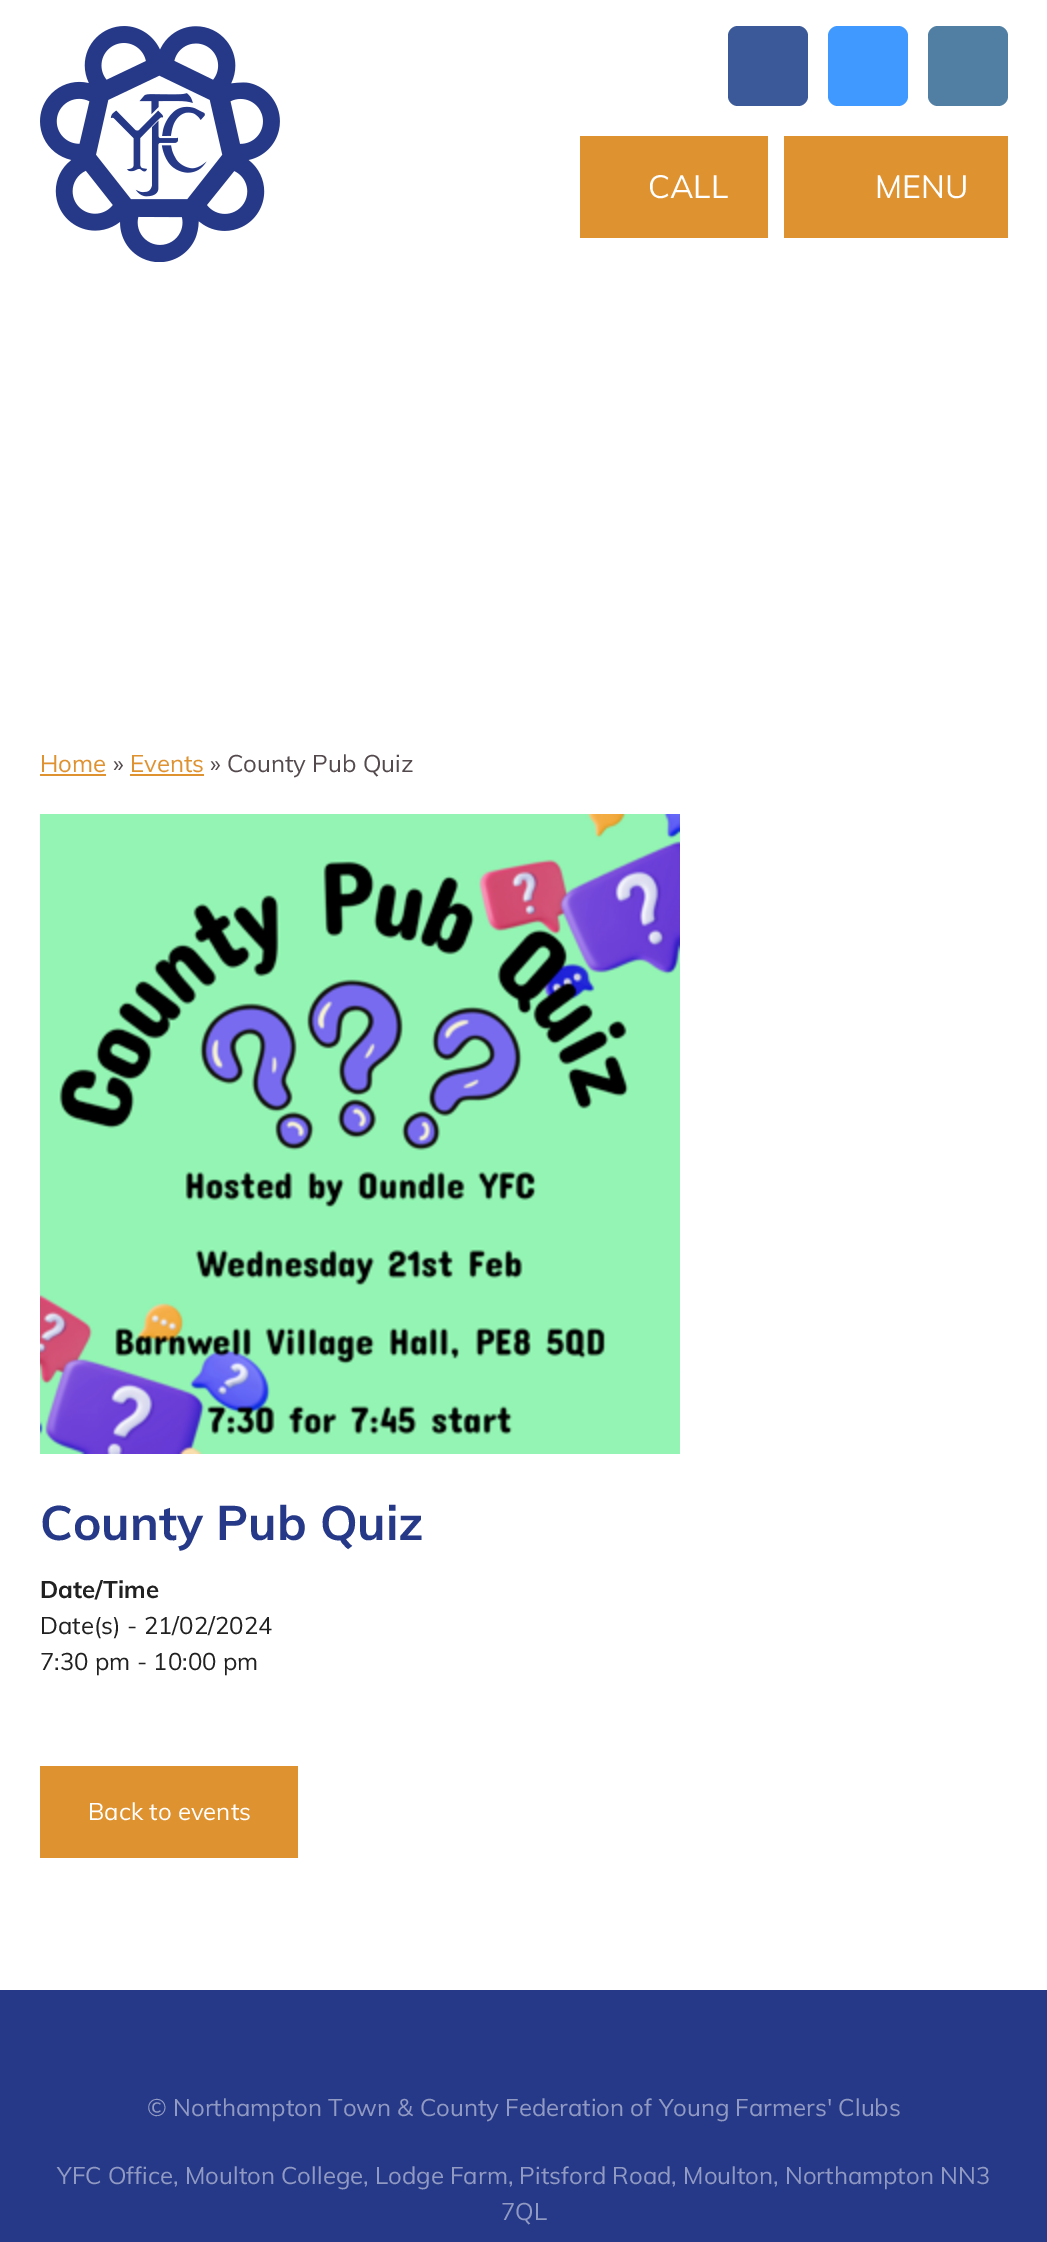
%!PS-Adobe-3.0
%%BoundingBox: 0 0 1047 2242
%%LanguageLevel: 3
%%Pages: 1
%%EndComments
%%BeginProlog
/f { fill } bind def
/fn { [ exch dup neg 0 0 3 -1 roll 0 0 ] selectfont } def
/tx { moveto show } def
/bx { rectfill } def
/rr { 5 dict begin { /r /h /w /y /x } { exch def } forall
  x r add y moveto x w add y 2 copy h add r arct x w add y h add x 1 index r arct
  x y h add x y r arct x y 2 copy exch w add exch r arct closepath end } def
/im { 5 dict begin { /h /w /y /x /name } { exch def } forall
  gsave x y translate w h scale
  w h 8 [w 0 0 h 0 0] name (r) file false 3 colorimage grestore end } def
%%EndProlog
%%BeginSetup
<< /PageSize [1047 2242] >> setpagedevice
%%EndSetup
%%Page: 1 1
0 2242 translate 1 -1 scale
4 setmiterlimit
0.149 0.224 0.533 setrgbcolor
0 0 1047 2242 bx
1 setgray
0 0 1047 1990 bx
(image0.raw) 40 26 240 236 im
0.231 0.349 0.596 setrgbcolor
728 26 80 80 10 rr f
0.251 0.6 1 setrgbcolor
828 26 80 80 10 rr f
0.318 0.498 0.643 setrgbcolor
928 26 80 80 10 rr f
0.875 0.573 0.188 setrgbcolor
580 136 188 102 bx
/Muli-Regular 32 fn
1 setgray
(CALL) 648 198 tx
0.875 0.573 0.188 setrgbcolor
784 136 224 102 bx
1 setgray
(MENU) 875 198 tx
/Muli-Regular 24 fn
0.875 0.573 0.188 setrgbcolor
(Home) 40 772 tx
40 774 66 2 bx
0.329 0.29 0.306 setrgbcolor
(») 113 772 tx
0.875 0.573 0.188 setrgbcolor
(Events) 130 772 tx
130 774 74 2 bx
0.329 0.29 0.306 setrgbcolor
(» County Pub Quiz) 210 772 tx
(image1.raw) 40 814 640 640 im
/Muli-Bold 48 fn
0.149 0.224 0.533 setrgbcolor
(County Pub Quiz) 40 1540 tx
/Muli-Bold 24 fn
0.129 setgray
(Date/Time) 40 1598 tx
/Muli-Regular 24 fn
(Date\(s\) - 21/02/2024) 40 1634 tx
(7:30 pm - 10:00 pm) 40 1670 tx
0.875 0.573 0.188 setrgbcolor
40 1766 258 92 bx
1 setgray
(Back to events) 88 1820 tx
0.569 0.604 0.761 setrgbcolor
(© Northampton Town & County Federation of Young Farmers' Clubs) 147 2116 tx
(YFC Office, Moulton College, Lodge Farm, Pitsford Road, Moulton, Northampton NN3) 57 2184 tx
(7QL) 501 2220 tx
showpage
%%EOF
